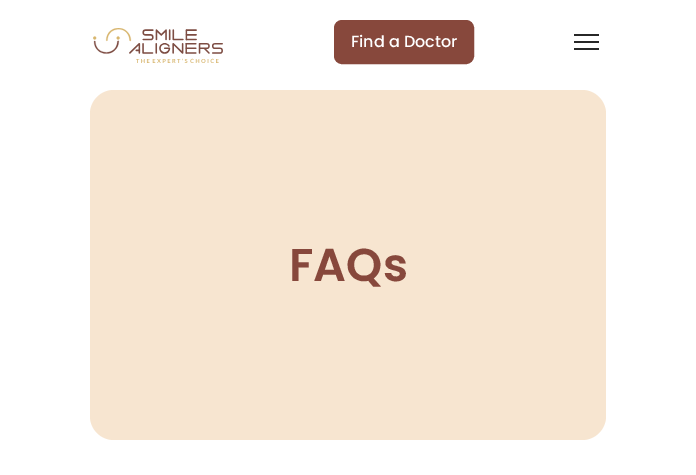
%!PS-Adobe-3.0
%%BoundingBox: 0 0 696 475
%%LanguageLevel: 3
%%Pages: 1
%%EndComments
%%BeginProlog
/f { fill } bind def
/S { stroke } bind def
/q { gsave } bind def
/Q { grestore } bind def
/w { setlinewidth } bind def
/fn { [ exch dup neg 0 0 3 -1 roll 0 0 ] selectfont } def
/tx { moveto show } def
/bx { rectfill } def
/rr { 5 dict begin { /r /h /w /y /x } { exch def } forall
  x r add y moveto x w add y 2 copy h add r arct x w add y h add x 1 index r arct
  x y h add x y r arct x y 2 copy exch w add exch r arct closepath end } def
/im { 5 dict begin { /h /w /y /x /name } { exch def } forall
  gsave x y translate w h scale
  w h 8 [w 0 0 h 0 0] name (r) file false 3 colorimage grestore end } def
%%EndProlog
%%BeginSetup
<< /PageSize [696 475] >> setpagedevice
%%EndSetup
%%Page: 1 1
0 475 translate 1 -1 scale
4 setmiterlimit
1 setgray
0 0 696 475 bx
(image0.raw) 93 28 130 35 im
0.529 0.282 0.235 setrgbcolor
335 21 138 42 7 rr q f Q
2 w
S
/Poppins-Medium 16 fn
1 setgray
(Find a Doctor) 351 47 tx
0.153 setgray
574 41 25 2 bx
574 34 25 2 bx
574 48 25 2 bx
0.969 0.898 0.816 setrgbcolor
90 90 516 350 24 rr f
/Poppins-SemiBold 46 fn
0.529 0.282 0.235 setrgbcolor
(FAQs) 289 281 tx
showpage
%%EOF
